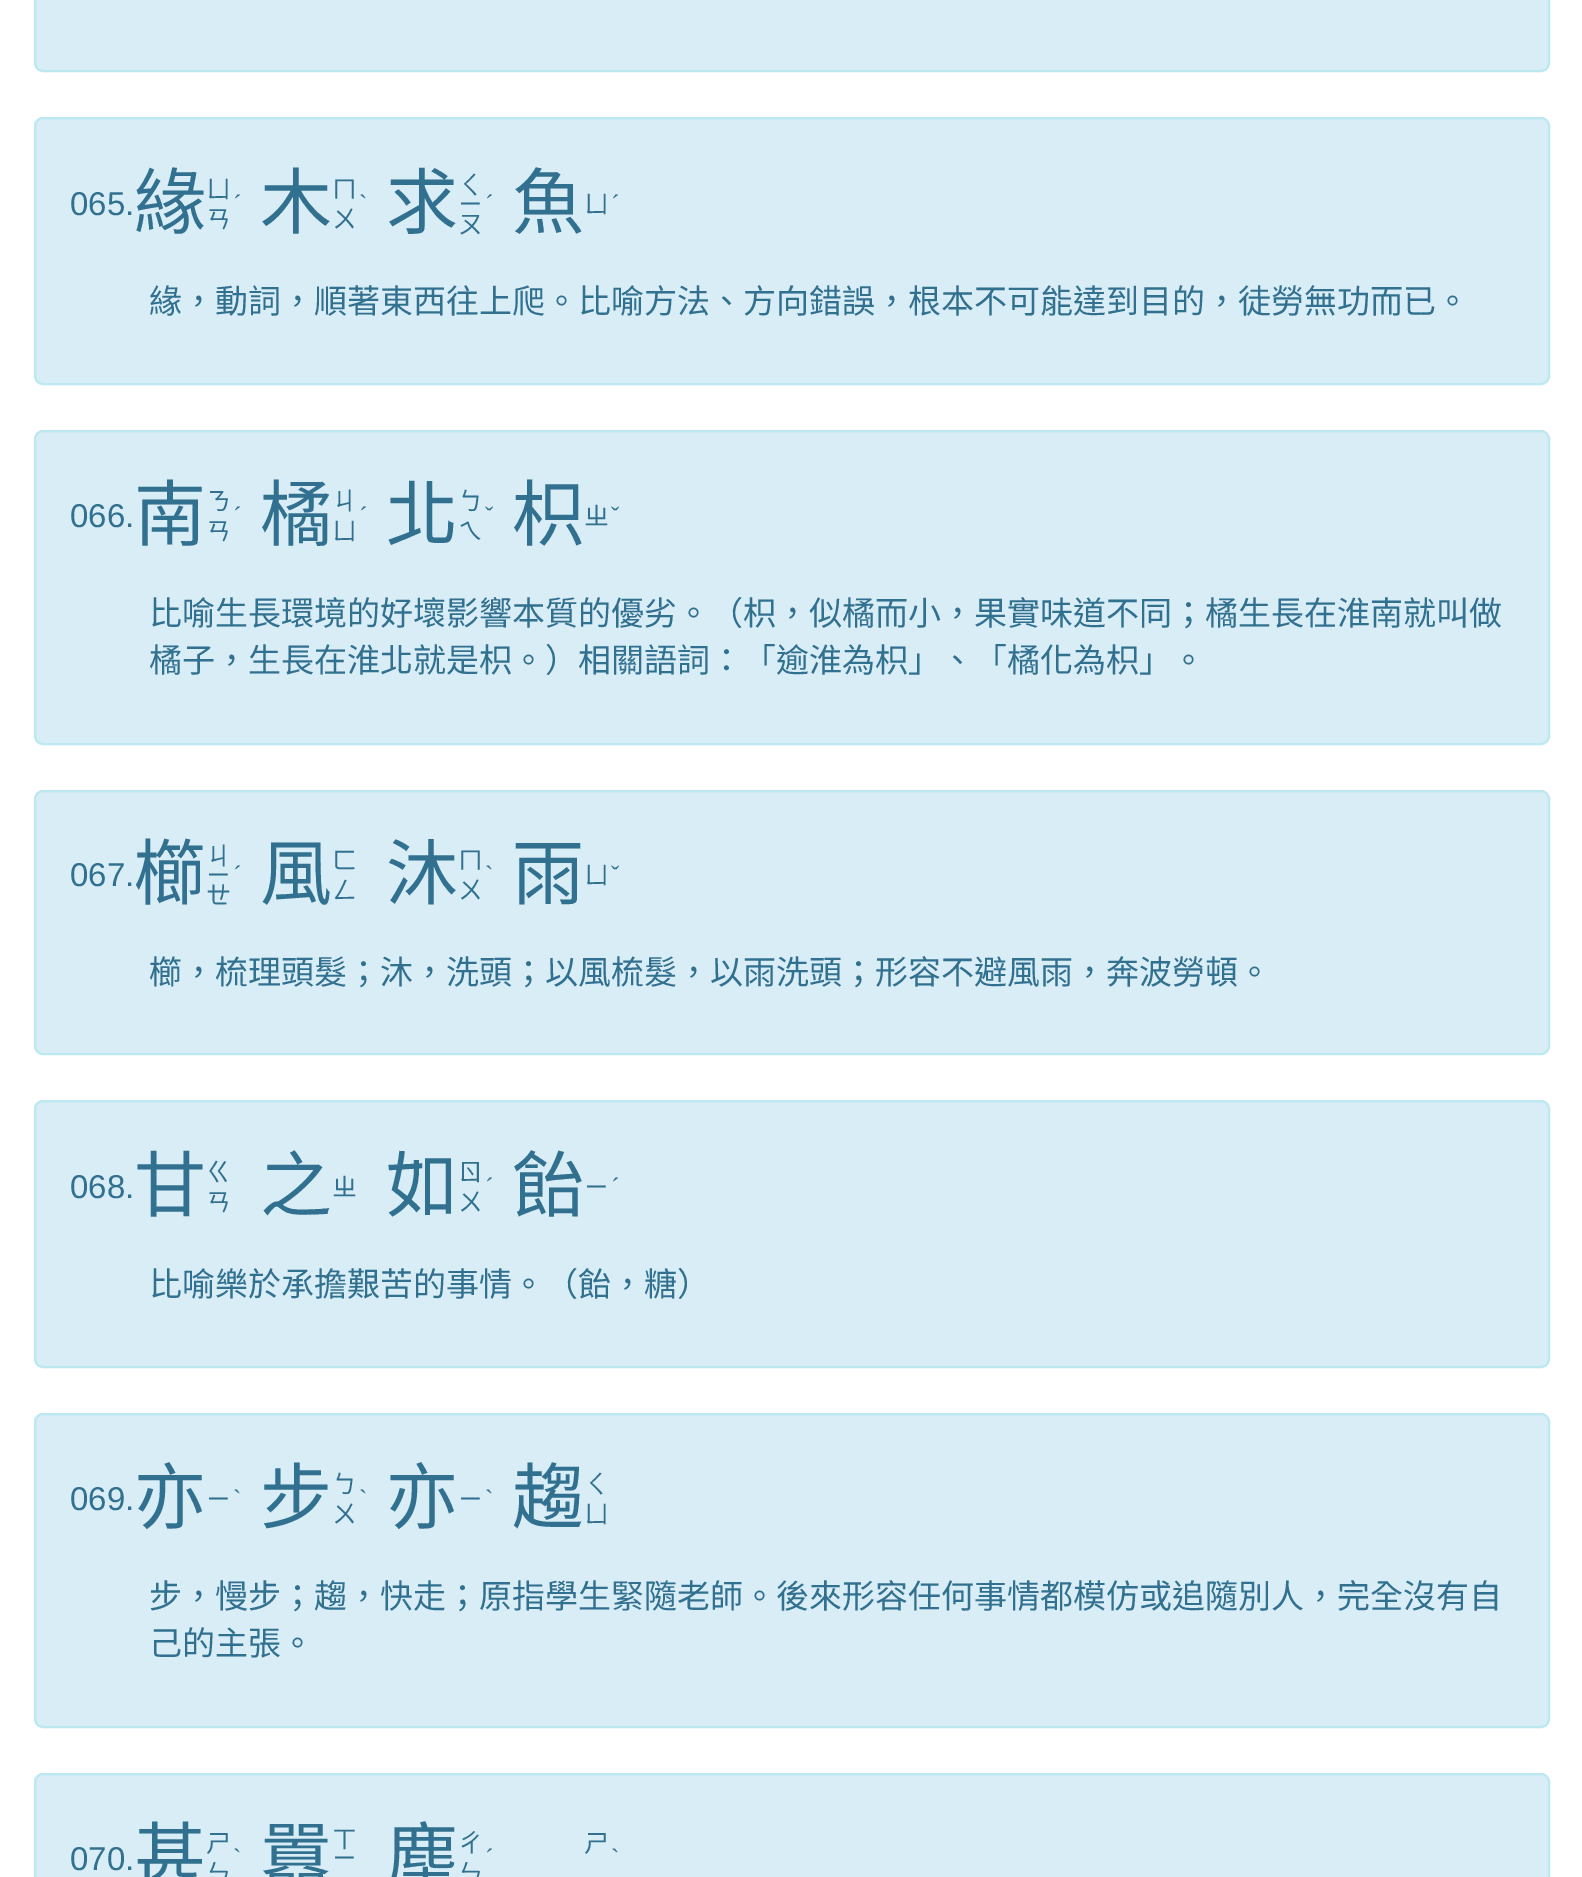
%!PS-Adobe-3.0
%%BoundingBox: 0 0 1582 1877
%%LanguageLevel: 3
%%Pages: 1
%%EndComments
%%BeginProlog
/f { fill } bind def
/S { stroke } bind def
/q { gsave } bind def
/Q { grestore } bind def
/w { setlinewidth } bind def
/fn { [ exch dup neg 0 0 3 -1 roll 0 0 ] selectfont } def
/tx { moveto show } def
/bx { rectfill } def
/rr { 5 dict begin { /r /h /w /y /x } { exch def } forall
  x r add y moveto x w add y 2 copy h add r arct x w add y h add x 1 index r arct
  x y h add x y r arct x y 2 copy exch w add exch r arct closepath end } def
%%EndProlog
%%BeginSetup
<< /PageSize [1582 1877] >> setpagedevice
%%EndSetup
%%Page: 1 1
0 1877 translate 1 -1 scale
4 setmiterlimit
1 setgray
0 0 1582 1877 bx
0.851 0.929 0.969 setrgbcolor
35 -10 1514 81 8 rr q f Q
0.737 0.91 0.945 setrgbcolor
2 w
S
0.851 0.929 0.969 setrgbcolor
35 118 1514 266 8 rr q f Q
0.737 0.91 0.945 setrgbcolor
S
/LiberationSans-Regular 33 fn
0.192 0.439 0.561 setrgbcolor
(065.) 70 215 tx
/NotoSansCJKTC-Regular 72 fn
(緣) 134 228 tx
/NotoSansCJKTC-Regular 25 fn
(ㄩ) 206 198 tx
(ㄢ) 206 228 tx
/LiberationSerif-Regular 25 fn
(ˊ) 233 212 tx
/NotoSansCJKTC-Regular 72 fn
(木) 260 228 tx
/NotoSansCJKTC-Regular 25 fn
(ㄇ) 332 198 tx
(ㄨ) 332 228 tx
/LiberationSerif-Regular 25 fn
(ˋ) 359 212 tx
/NotoSansCJKTC-Regular 72 fn
(求) 386 228 tx
/NotoSansCJKTC-Regular 25 fn
(ㄑ) 458 194 tx
(ㄧ) 458 213 tx
(ㄡ) 458 233 tx
/LiberationSerif-Regular 25 fn
(ˊ) 485 212 tx
/NotoSansCJKTC-Regular 72 fn
(魚) 512 228 tx
/NotoSansCJKTC-Regular 25 fn
(ㄩ) 584 213 tx
/LiberationSerif-Regular 25 fn
(ˊ) 611 212 tx
/NotoSansCJKTC-Regular 33 fn
(緣，動詞，順著東西往上爬。比喻方法、方向錯誤，根本不可能達到目的，徒勞無功而已。) 149 313 tx
0.851 0.929 0.969 setrgbcolor
35 431 1514 313 8 rr q f Q
0.737 0.91 0.945 setrgbcolor
S
/LiberationSans-Regular 33 fn
0.192 0.439 0.561 setrgbcolor
(066.) 70 527 tx
/NotoSansCJKTC-Regular 72 fn
(南) 134 540 tx
/NotoSansCJKTC-Regular 25 fn
(ㄋ) 206 510 tx
(ㄢ) 206 540 tx
/LiberationSerif-Regular 25 fn
(ˊ) 233 524 tx
/NotoSansCJKTC-Regular 72 fn
(橘) 260 540 tx
/NotoSansCJKTC-Regular 25 fn
(ㄐ) 332 510 tx
(ㄩ) 332 540 tx
/LiberationSerif-Regular 25 fn
(ˊ) 359 524 tx
/NotoSansCJKTC-Regular 72 fn
(北) 386 540 tx
/NotoSansCJKTC-Regular 25 fn
(ㄅ) 458 510 tx
(ㄟ) 458 540 tx
/LiberationSerif-Regular 25 fn
(ˇ) 485 524 tx
/NotoSansCJKTC-Regular 72 fn
(枳) 512 540 tx
/NotoSansCJKTC-Regular 25 fn
(ㄓ) 584 525 tx
/LiberationSerif-Regular 25 fn
(ˇ) 611 524 tx
/NotoSansCJKTC-Regular 33 fn
(比喻生長環境的好壞影響本質的優劣。（枳，似橘而小，果實味道不同；橘生長在淮南就叫做) 149 625 tx
(橘子，生長在淮北就是枳。）相關語詞：「逾淮為枳」、「橘化為枳」。) 149 672 tx
0.851 0.929 0.969 setrgbcolor
35 791 1514 263 8 rr q f Q
0.737 0.91 0.945 setrgbcolor
S
/LiberationSans-Regular 33 fn
0.192 0.439 0.561 setrgbcolor
(067.) 70 886 tx
/NotoSansCJKTC-Regular 72 fn
(櫛) 134 899 tx
/NotoSansCJKTC-Regular 25 fn
(ㄐ) 206 865 tx
(ㄧ) 206 884 tx
(ㄝ) 206 904 tx
/LiberationSerif-Regular 25 fn
(ˊ) 233 883 tx
/NotoSansCJKTC-Regular 72 fn
(風) 260 899 tx
/NotoSansCJKTC-Regular 25 fn
(ㄈ) 332 869 tx
(ㄥ) 332 899 tx
/NotoSansCJKTC-Regular 72 fn
(沐) 386 899 tx
/NotoSansCJKTC-Regular 25 fn
(ㄇ) 458 869 tx
(ㄨ) 458 899 tx
/LiberationSerif-Regular 25 fn
(ˋ) 485 883 tx
/NotoSansCJKTC-Regular 72 fn
(雨) 512 899 tx
/NotoSansCJKTC-Regular 25 fn
(ㄩ) 584 884 tx
/LiberationSerif-Regular 25 fn
(ˇ) 611 883 tx
/NotoSansCJKTC-Regular 33 fn
(櫛，梳理頭髮；沐，洗頭；以風梳髮，以雨洗頭；形容不避風雨，奔波勞頓。) 149 984 tx
0.851 0.929 0.969 setrgbcolor
35 1101 1514 266 8 rr q f Q
0.737 0.91 0.945 setrgbcolor
S
/LiberationSans-Regular 33 fn
0.192 0.439 0.561 setrgbcolor
(068.) 70 1198 tx
/NotoSansCJKTC-Regular 72 fn
(甘) 134 1211 tx
/NotoSansCJKTC-Regular 25 fn
(ㄍ) 206 1181 tx
(ㄢ) 206 1211 tx
/NotoSansCJKTC-Regular 72 fn
(之) 260 1211 tx
/NotoSansCJKTC-Regular 25 fn
(ㄓ) 332 1196 tx
/NotoSansCJKTC-Regular 72 fn
(如) 386 1211 tx
/NotoSansCJKTC-Regular 25 fn
(ㄖ) 458 1181 tx
(ㄨ) 458 1211 tx
/LiberationSerif-Regular 25 fn
(ˊ) 485 1195 tx
/NotoSansCJKTC-Regular 72 fn
(飴) 512 1211 tx
/LiberationSerif-Regular 25 fn
(ˊ) 611 1195 tx
/NotoSansCJKTC-Regular 25 fn
(ㄧ) 584 1196 tx
/NotoSansCJKTC-Regular 33 fn
(比喻樂於承擔艱苦的事情。（飴，糖）) 149 1296 tx
0.851 0.929 0.969 setrgbcolor
35 1414 1514 313 8 rr q f Q
0.737 0.91 0.945 setrgbcolor
S
/LiberationSans-Regular 33 fn
0.192 0.439 0.561 setrgbcolor
(069.) 70 1510 tx
/NotoSansCJKTC-Regular 72 fn
(亦) 134 1523 tx
/LiberationSerif-Regular 25 fn
(ˋ) 233 1507 tx
/NotoSansCJKTC-Regular 72 fn
(步) 260 1523 tx
/NotoSansCJKTC-Regular 25 fn
(ㄅ) 332 1493 tx
(ㄨ) 332 1523 tx
/LiberationSerif-Regular 25 fn
(ˋ) 359 1507 tx
/NotoSansCJKTC-Regular 72 fn
(亦) 386 1523 tx
/LiberationSerif-Regular 25 fn
(ˋ) 485 1507 tx
/NotoSansCJKTC-Regular 72 fn
(趨) 512 1523 tx
/NotoSansCJKTC-Regular 25 fn
(ㄑ) 584 1493 tx
(ㄩ) 584 1523 tx
(ㄧ) 206 1508 tx
(ㄧ) 458 1508 tx
/NotoSansCJKTC-Regular 33 fn
(步，慢步；趨，快走；原指學生緊隨老師。後來形容任何事情都模仿或追隨別人，完全沒有自) 149 1608 tx
(己的主張。) 149 1655 tx
0.851 0.929 0.969 setrgbcolor
35 1774 1514 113 8 rr q f Q
0.737 0.91 0.945 setrgbcolor
S
/NotoSansCJKTC-Regular 72 fn
0.192 0.439 0.561 setrgbcolor
(甚) 134 1882 tx
/NotoSansCJKTC-Regular 25 fn
(ㄕ) 206 1852 tx
(ㄣ) 206 1882 tx
/NotoSansCJKTC-Regular 72 fn
(囂) 260 1882 tx
/NotoSansCJKTC-Regular 25 fn
(ㄒ) 332 1848 tx
(ㄧ) 332 1867 tx
/NotoSansCJKTC-Regular 72 fn
(塵) 386 1882 tx
/NotoSansCJKTC-Regular 25 fn
(ㄔ) 458 1852 tx
(ㄣ) 458 1882 tx
(ㄕ) 584 1852 tx
/LiberationSans-Regular 33 fn
(070.) 70 1870 tx
/LiberationSerif-Regular 25 fn
(ˋ) 233 1866 tx
(ˊ) 485 1866 tx
(ˋ) 611 1866 tx
showpage
%%EOF
